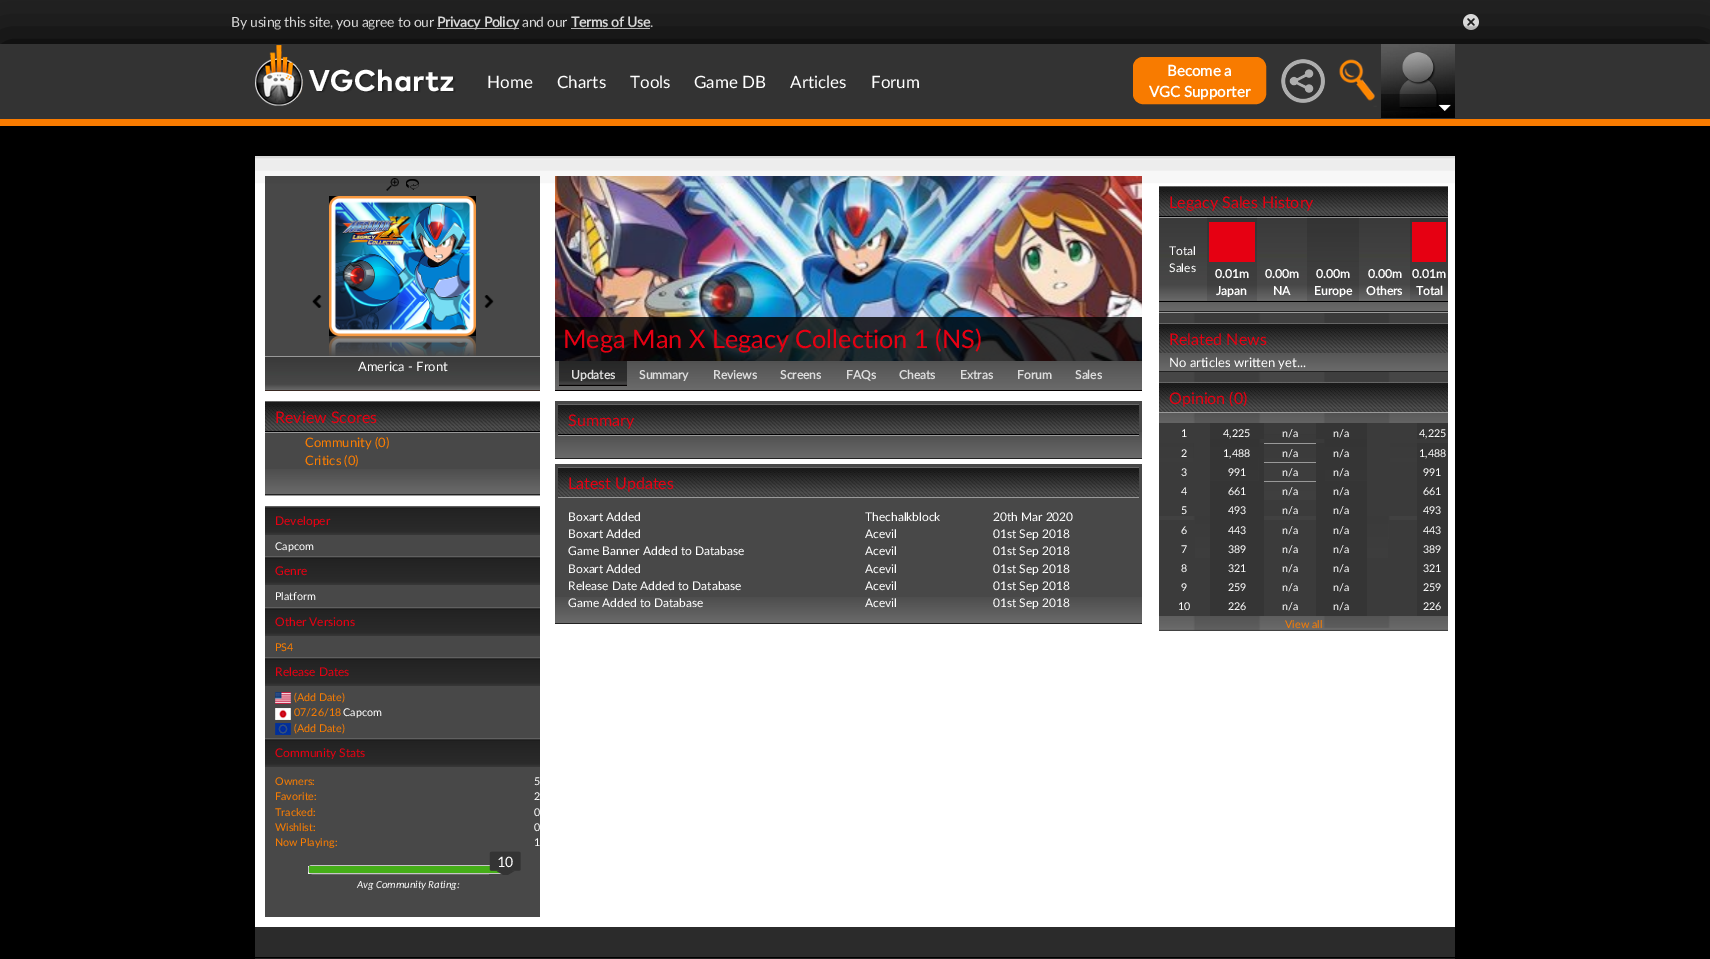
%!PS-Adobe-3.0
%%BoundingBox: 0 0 1710 959
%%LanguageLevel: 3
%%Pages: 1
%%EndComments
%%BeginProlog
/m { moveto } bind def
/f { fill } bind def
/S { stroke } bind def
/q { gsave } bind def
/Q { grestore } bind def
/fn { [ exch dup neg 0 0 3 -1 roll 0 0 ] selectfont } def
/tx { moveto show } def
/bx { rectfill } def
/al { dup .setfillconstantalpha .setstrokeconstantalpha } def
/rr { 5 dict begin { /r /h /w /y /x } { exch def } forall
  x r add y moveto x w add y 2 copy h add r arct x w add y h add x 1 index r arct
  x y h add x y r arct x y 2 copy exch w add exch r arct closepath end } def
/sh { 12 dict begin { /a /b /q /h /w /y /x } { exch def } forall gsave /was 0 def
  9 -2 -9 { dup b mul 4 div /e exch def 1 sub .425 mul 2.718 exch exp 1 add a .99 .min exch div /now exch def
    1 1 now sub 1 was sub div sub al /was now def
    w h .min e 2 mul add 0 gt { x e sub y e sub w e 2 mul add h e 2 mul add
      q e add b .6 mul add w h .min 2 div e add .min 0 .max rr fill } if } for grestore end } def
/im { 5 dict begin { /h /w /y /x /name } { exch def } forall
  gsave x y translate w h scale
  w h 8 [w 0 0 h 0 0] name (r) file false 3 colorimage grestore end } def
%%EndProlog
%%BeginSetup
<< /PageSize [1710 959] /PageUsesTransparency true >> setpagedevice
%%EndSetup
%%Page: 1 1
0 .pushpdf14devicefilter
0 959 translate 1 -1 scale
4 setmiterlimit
0 setgray
0 0 1710 959 bx
0.133 setgray
0 0 1710 44 bx
/Lato-Regular 14 fn
1 setgray
231 27 m -0.25 0 (By using this site, you agree to our) ashow
437 28 82 1 bx
/Lato-Bold 14 fn
437 27 m -0.25 0 (Privacy Policy) ashow
/Lato-Regular 14 fn
522 27 m -0.25 0 (and our) ashow
/Lato-Bold 14 fn
571 27 m -0.25 0 (Terms of Use) ashow
/Lato-Regular 14 fn
650 27 m -0.25 0 (.) ashow
571 28 79 1 bx
(image0.raw) 1463 14 16 16 im
255 156 1200 771 bx
0.282 setgray
265 176 275 180 bx
(image9.raw) 386 178 13 13 im
(image10.raw) 406 179 13 11 im
(image11.raw) 329 196 147 140 im
(image22.raw) 555 176 587 185 im
(image28.raw) 1159 186 289 31 im
0 setgray
0 45 1710 82 0 25 1 sh
0.2 setgray
0 44 1710 75 bx
(image1.raw) 255 45 201 61 im
/Lato-Regular 17 fn
1 setgray
(Home) 487 88 tx
(Charts) 557 88 tx
(Tools) 630 88 tx
(Game DB) 694 88 tx
(Articles) 790 88 tx
(Forum) 871 88 tx
0.973 0.482 0 setrgbcolor
1133.5 57.5 132 46 9.5 rr q f Q
S
/Lato-Bold 15 fn
1 setgray
(Become a) 1167 76 tx
(VGC Supporter) 1149 97 tx
(image2.raw) 1281 59 44 44 im
(image3.raw) 1339 59 38 48 im
(image4.raw) 1381 44 74 74 im
(image5.raw) 1381 94 74 17 im
0.976 0.482 0 setrgbcolor
0 119 1710 7 bx
(image6.raw) 265 356 275 35 im
(image7.raw) 312 295 10 13 im
(image8.raw) 484 295 10 13 im
(image12.raw) 329 336 147 20 im
/Lato-Regular 13 fn
1 setgray
(America - Front) 358 371 tx
0.282 setgray
265 433 275 36 bx
(image13.raw) 265 469 275 11 im
(image14.raw) 265 401 275 31 im
0.6 setgray
265 432 275 1 bx
/Lato-Regular 16 fn
0.902 0 0.071 setrgbcolor
(Review Scores) 275 423 tx
/Lato-Regular 13 fn
0.98 0.49 0.004 setrgbcolor
(Community \(0\)) 305 447 tx
(Critics \(0\)) 305 465 tx
(image15.raw) 265 480 275 15 im
0.6 setgray
265 495 275 1 bx
0.282 setgray
265 535 275 382 bx
(image16.raw) 265 506 275 29 im
/Lato-Regular 12 fn
0.902 0 0.071 setrgbcolor
(Developer) 275 525 tx
/Lato-Regular 10.75 fn
1 setgray
(Capcom) 275 550 tx
(image16.raw) 265 556 275 29 im
/Lato-Regular 12 fn
0.902 0 0.071 setrgbcolor
(Genre) 275 575 tx
/Lato-Regular 10.75 fn
1 setgray
(Platform) 275 600 tx
(image16.raw) 265 607 275 29 im
/Lato-Regular 12 fn
0.902 0 0.071 setrgbcolor
(Other Versions) 275 626 tx
/Lato-Regular 10.75 fn
0.98 0.49 0.004 setrgbcolor
(PS4) 275 651 tx
(image16.raw) 265 657 275 29 im
/Lato-Regular 12 fn
0.902 0 0.071 setrgbcolor
(Release Dates) 275 676 tx
(image17.raw) 275 692 16 12 im
/Lato-Regular 10.75 fn
0.98 0.49 0.004 setrgbcolor
(\(Add Date\)) 294 701 tx
(image18.raw) 275 708 16 12 im
(07/26/18) 294 716 tx
1 setgray
(Capcom) 343 716 tx
(image19.raw) 275 723 16 12 im
0.98 0.49 0.004 setrgbcolor
(\(Add Date\)) 294 732 tx
(image16.raw) 265 738 275 29 im
/Lato-Regular 12 fn
0.902 0 0.071 setrgbcolor
(Community Stats) 275 757 tx
/Lato-Regular 10.75 fn
0.98 0.49 0.004 setrgbcolor
(Owners:) 275 785 tx
1 setgray
(5) 534 785 tx
0.98 0.49 0.004 setrgbcolor
(Favorite:) 275 800 tx
1 setgray
(2) 534 800 tx
0.98 0.49 0.004 setrgbcolor
(Tracked:) 275 816 tx
1 setgray
(0) 534 816 tx
0.98 0.49 0.004 setrgbcolor
(Wishlist:) 275 831 tx
1 setgray
(0) 534 831 tx
0.98 0.49 0.004 setrgbcolor
(Now Playing:) 275 846 tx
1 setgray
(1) 534 846 tx
0.973 setgray
308 866 4 8 bx
0.773 setgray
308.5 865.5 199 8 3.5 rr S
0.271 0.682 0.094 setrgbcolor
309 866 191 7 bx
(image20.raw) 489 851 32 24 im
/Carlito-Regular 16 fn
1 setgray
(10) 497 867 tx
/Carlito-Italic 10.75 fn
(Avg Community Rating:) 357 888 tx
(image21.raw) 555 361 587 30 im
0.8 al
0 setgray
555 317 587 44 bx
/Lato-Regular 25.3 fn
1 al
0.902 0 0.071 setrgbcolor
(Mega Man X Legacy Collection 1 \(NS\)) 563 348 tx
(image23.raw) 559 361 68 25 im
/Lato-Bold 12 fn
0.867 setgray
(Updates) 571 379 tx
(Summary) 639 379 tx
(Reviews) 713 379 tx
(Screens) 780 379 tx
(FAQs) 846 379 tx
(Cheats) 899 379 tx
(Extras) 960 379 tx
(Forum) 1017 379 tx
(Sales) 1075 379 tx
0.282 setgray
555 401 587 31 bx
(image24.raw) 555 432 587 27 im
(image25.raw) 558 404 581 31 im
0.6 setgray
558 435 581 1 bx
/Lato-Regular 16 fn
0.902 0 0.071 setrgbcolor
(Summary) 568 426 tx
0.282 setgray
555 464 587 133 bx
(image24.raw) 555 597 587 27 im
(image26.raw) 558 467 581 30 im
0.6 setgray
558 497 581 1 bx
0.902 0 0.071 setrgbcolor
(Latest Updates) 568 489 tx
/Lato-Regular 12 fn
1 setgray
(Boxart Added) 568 521 tx
(Thechalkblock) 865 521 tx
(20th Mar 2020) 993 521 tx
(Boxart Added) 568 538 tx
(Acevil) 865 538 tx
(01st Sep 2018) 993 538 tx
(Game Banner Added to Database) 568 555 tx
(Acevil) 865 555 tx
(01st Sep 2018) 993 555 tx
(Boxart Added) 568 573 tx
(Acevil) 865 573 tx
(01st Sep 2018) 993 573 tx
(Release Date Added to Database) 568 590 tx
(Acevil) 865 590 tx
(01st Sep 2018) 993 590 tx
(Game Added to Database) 568 607 tx
(Acevil) 865 607 tx
(01st Sep 2018) 993 607 tx
(image27.raw) 1159 302 289 10 im
/Lato-Regular 16 fn
0.902 0 0.071 setrgbcolor
(Legacy Sales History) 1169 208 tx
(image29.raw) 1159 217 48 85 im
/Lato-Regular 12 fn
1 setgray
(Total) 1169 255 tx
(Sales) 1169 272 tx
(image30.raw) 1207 217 50 85 im
0.902 0 0.071 setrgbcolor
1209 222 46 40 bx
/Lato-Bold 12 fn
1 setgray
(0.01m) 1215 278 tx
(Japan) 1216 295 tx
(image31.raw) 1257 217 50 85 im
(0.00m) 1265 278 tx
(NA) 1273 295 tx
(image32.raw) 1307 217 52 85 im
(0.00m) 1316 278 tx
(Europe) 1314 295 tx
(image33.raw) 1359 217 51 85 im
(0.00m) 1368 278 tx
(Others) 1366 295 tx
(image34.raw) 1410 217 38 85 im
0.902 0 0.071 setrgbcolor
1412 222 34 40 bx
1 setgray
(0.01m) 1412 278 tx
(Total) 1416 295 tx
(image35.raw) 1159 313 289 318 im
0.6 setgray
1159 312 289 1 bx
(image36.raw) 1159 353 289 19 im
(image37.raw) 1159 323 289 30 im
/Lato-Regular 16 fn
0.902 0 0.071 setrgbcolor
(Related News) 1169 345 tx
/Lato-Regular 13 fn
1 setgray
(No articles written yet...) 1169 367 tx
(image37.raw) 1159 382 289 30 im
0.6 setgray
1159 412 289 1 bx
/Lato-Regular 16 fn
0.902 0 0.071 setrgbcolor
(Opinion \(0\)) 1169 404 tx
0.231 setgray
1159 423 51 20 bx
/Lato-Regular 10.75 fn
1 setgray
(1) 1181 437 tx
0.208 setgray
1210 423 54 16 bx
1 setgray
(4,225) 1223 437 tx
0.231 setgray
1264 423 52 10 bx
1 setgray
(n/a) 1282 437 tx
0.208 setgray
1316 423 51 16 bx
1 setgray
(n/a) 1333 437 tx
0.231 setgray
1367 423 50 20 bx
0.208 setgray
1417 423 31 16 bx
1 setgray
(4,225) 1419 437 tx
0.231 setgray
1194 443 16 19 bx
1 setgray
(2) 1181 457 tx
0.208 setgray
1259 443 5 38 bx
1 setgray
(1,488) 1223 457 tx
0.6 setgray
1264 443 52 1 bx
1 setgray
(n/a) 1282 457 tx
0.208 setgray
1316 443 9 38 bx
1 setgray
(n/a) 1333 457 tx
0.231 setgray
1367 443 23 19 bx
0.208 setgray
1417 443 31 173 bx
1 setgray
(1,488) 1419 457 tx
0.231 setgray
1159 462 51 54 bx
1 setgray
(3) 1181 476 tx
(991) 1228 476 tx
0.6 setgray
1264 462 52 1 bx
1 setgray
(n/a) 1282 476 tx
(n/a) 1333 476 tx
0.231 setgray
1367 462 50 54 bx
1 setgray
(991) 1423 476 tx
(4) 1181 495 tx
0.208 setgray
1210 481 54 135 bx
1 setgray
(661) 1228 495 tx
0.6 setgray
1264 481 52 1 bx
1 setgray
(n/a) 1282 495 tx
0.208 setgray
1316 481 51 135 bx
1 setgray
(n/a) 1333 495 tx
(661) 1423 495 tx
(5) 1181 514 tx
(493) 1228 514 tx
0.231 setgray
1264 500 52 16 bx
1 setgray
(n/a) 1282 514 tx
(n/a) 1333 514 tx
(493) 1423 514 tx
0.231 setgray
1159 520 36 38 bx
1 setgray
(6) 1181 534 tx
(443) 1228 534 tx
0.231 setgray
1264 520 52 96 bx
1 setgray
(n/a) 1282 534 tx
(n/a) 1333 534 tx
0.231 setgray
1389 520 28 19 bx
1 setgray
(443) 1423 534 tx
(7) 1181 553 tx
(389) 1228 553 tx
(n/a) 1282 553 tx
(n/a) 1333 553 tx
0.231 setgray
1388 539 29 19 bx
1 setgray
(389) 1423 553 tx
0.231 setgray
1159 558 51 58 bx
1 setgray
(8) 1181 572 tx
(321) 1228 572 tx
(n/a) 1282 572 tx
(n/a) 1333 572 tx
0.231 setgray
1367 558 50 58 bx
1 setgray
(321) 1423 572 tx
(9) 1181 591 tx
(259) 1228 591 tx
(n/a) 1282 591 tx
(n/a) 1333 591 tx
(259) 1423 591 tx
(10) 1178 610 tx
(226) 1228 610 tx
(n/a) 1282 610 tx
(n/a) 1333 610 tx
(226) 1423 610 tx
0.98 0.49 0.004 setrgbcolor
(View all) 1285 628 tx
0.169 setgray
255 927 1200 30 bx
0.125 setgray
255 958 1200 1 bx
.poppdf14devicefilter showpage
%%EOF
